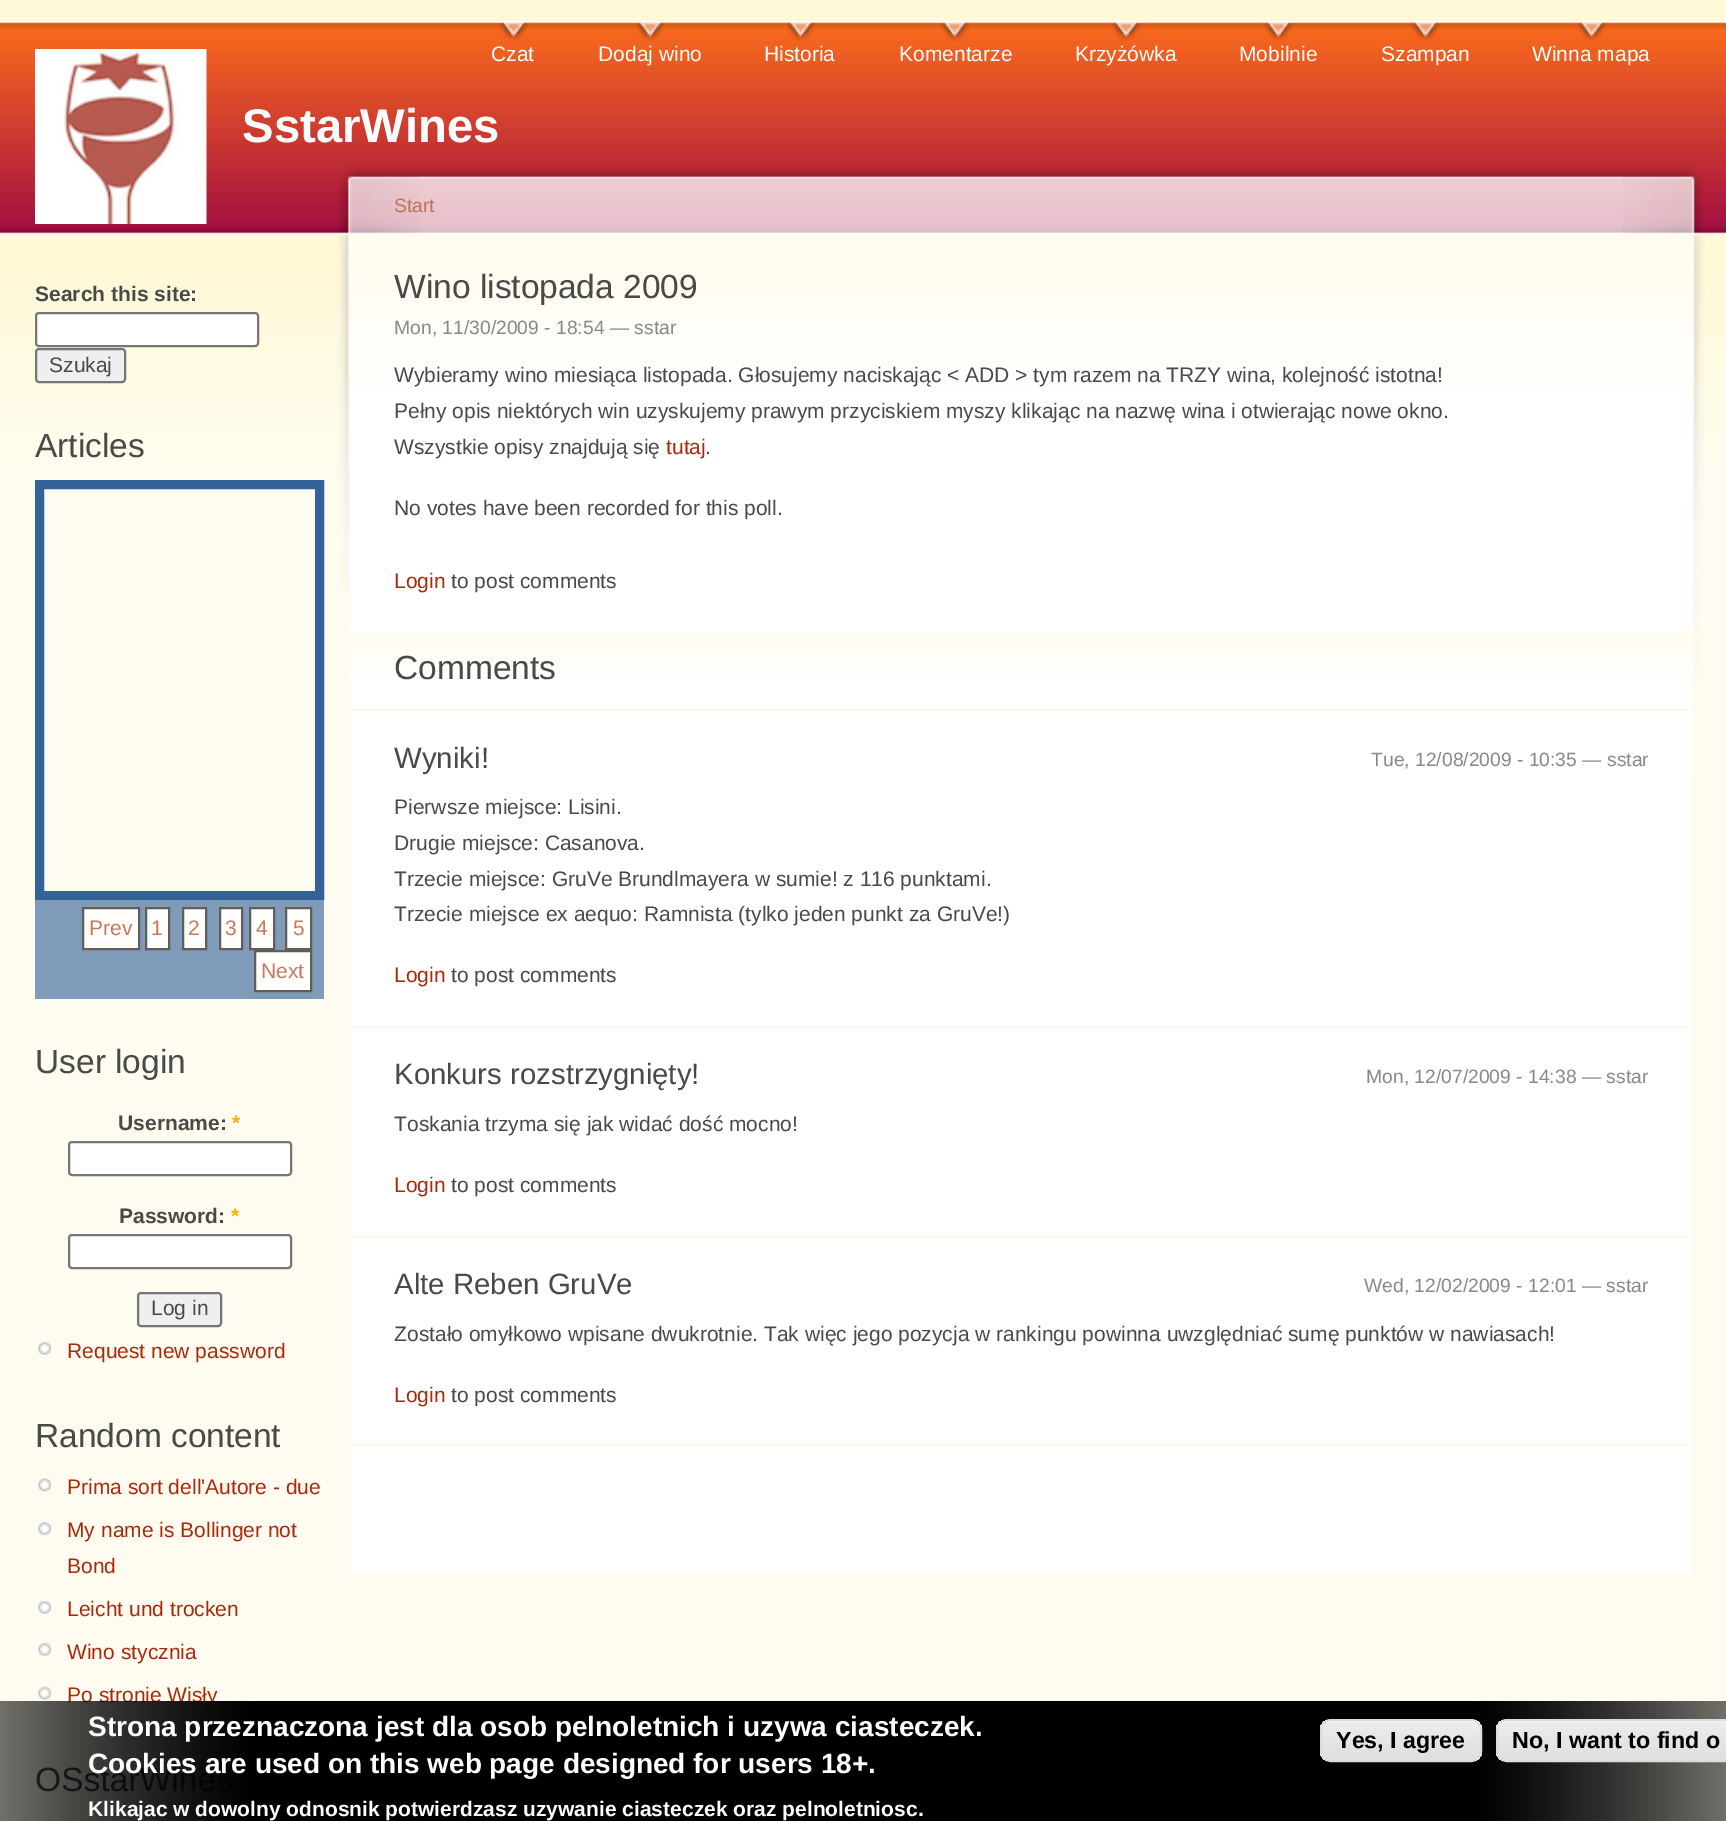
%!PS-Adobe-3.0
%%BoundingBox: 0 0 1726 1821
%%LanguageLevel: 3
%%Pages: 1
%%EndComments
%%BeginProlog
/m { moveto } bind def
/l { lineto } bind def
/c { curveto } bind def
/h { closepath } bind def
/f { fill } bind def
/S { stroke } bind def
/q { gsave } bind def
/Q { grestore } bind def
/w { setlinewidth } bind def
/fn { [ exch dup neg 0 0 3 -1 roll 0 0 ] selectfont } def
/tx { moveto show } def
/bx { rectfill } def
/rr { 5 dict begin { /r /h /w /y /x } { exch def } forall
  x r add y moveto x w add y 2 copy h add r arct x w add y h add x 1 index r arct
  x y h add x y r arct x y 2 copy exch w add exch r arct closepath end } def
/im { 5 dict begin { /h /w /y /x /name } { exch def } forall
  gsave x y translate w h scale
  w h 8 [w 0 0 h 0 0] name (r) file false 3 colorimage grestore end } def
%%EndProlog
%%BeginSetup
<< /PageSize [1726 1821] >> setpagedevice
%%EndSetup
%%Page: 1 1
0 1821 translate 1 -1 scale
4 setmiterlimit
0.996 0.988 0.945 setrgbcolor
0 0 1726 1821 bx
1 0.98 0.867 setrgbcolor
0 0 1726 2 bx
1 0.976 0.847 setrgbcolor
0 2 1726 19 bx
(image0.raw) 0 21 1726 439 im
(image1.raw) 499 22 30 19 im
/LiberationSans-Regular 21 fn
1 setgray
(Czat) 491 61 tx
(image2.raw) 635 22 30 19 im
(Dodaj wino) 598 61 tx
(image1.raw) 786 22 30 19 im
(Historia) 764 61 tx
(image1.raw) 940 22 30 19 im
(Komentarze) 899 61 tx
(image2.raw) 1111 22 30 19 im
(Krzyżówka) 1075 61 tx
(image3.raw) 1263 22 30 19 im
(Mobilnie) 1239 61 tx
(image4.raw) 1410 22 30 19 im
(Szampan) 1381 61 tx
(image1.raw) 1577 22 30 19 im
(Winna mapa) 1532 61 tx
(image5.raw) 35 49 172 175 im
/LiberationSans-Bold 47.25 fn
(SstarWines) 242 142 tx
/LiberationSans-Bold 21 fn
0.286 setgray
(Search this site:) 35 301 tx
1 setgray
36 313 222 33 3 rr q f Q
0.463 setgray
2 w
S
0.937 setgray
36 349 89 33 3 rr q f Q
0.463 setgray
S
/LiberationSans-Regular 21 fn
0.286 setgray
(Szukaj) 49 372 tx
/LiberationSans-Regular 33.5 fn
(Articles) 35 457 tx
0.2 0.384 0.6 setrgbcolor
9 w
39.5 484.5 280 411 rectstroke
0.498 0.608 0.729 setrgbcolor
35 900 289 99 bx
1 0.996 0.98 setrgbcolor
83 908 m 139 908 l 139 949 l 83 949 l h q f Q
0.373 0.369 0.353 setrgbcolor
2 w
S
/LiberationSans-Regular 21 fn
0.788 0.471 0.376 setrgbcolor
(Prev) 89 935 tx
1 0.996 0.98 setrgbcolor
146 908 m 169 908 l 169 949 l 146 949 l h q f Q
0.373 0.369 0.353 setrgbcolor
S
0.788 0.471 0.376 setrgbcolor
(1) 151 935 tx
1 0.996 0.98 setrgbcolor
183 908 m 206 908 l 206 949 l 183 949 l h q f Q
0.373 0.369 0.353 setrgbcolor
S
0.788 0.471 0.376 setrgbcolor
(2) 188 935 tx
1 0.996 0.98 setrgbcolor
220 908 m 242 908 l 242 949 l 220 949 l h q f Q
0.373 0.369 0.353 setrgbcolor
S
0.788 0.471 0.376 setrgbcolor
(3) 225 935 tx
1 0.996 0.98 setrgbcolor
250 908 m 274 908 l 274 949 l 250 949 l h q f Q
0.373 0.369 0.353 setrgbcolor
S
0.788 0.471 0.376 setrgbcolor
(4) 256 935 tx
1 0.996 0.98 setrgbcolor
286 908 m 311 908 l 311 949 l 286 949 l h q f Q
0.373 0.369 0.353 setrgbcolor
S
0.788 0.471 0.376 setrgbcolor
(5) 293 935 tx
1 0.996 0.98 setrgbcolor
255 951 m 311 951 l 311 991 l 255 991 l h q f Q
0.373 0.369 0.353 setrgbcolor
S
0.788 0.471 0.376 setrgbcolor
(Next) 261 978 tx
/LiberationSans-Regular 33.5 fn
0.286 setgray
(User login) 35 1073 tx
/LiberationSans-Bold 21 fn
(Username:) 118 1130 tx
1 0.682 0 setrgbcolor
(*) 232 1130 tx
1 setgray
69 1142 222 33 3 rr q f Q
0.463 setgray
S
0.286 setgray
(Password:) 119 1223 tx
1 0.682 0 setrgbcolor
(*) 231 1223 tx
1 setgray
69 1235 222 33 3 rr q f Q
0.463 setgray
S
0.937 setgray
138 1293 83 33 3 rr q f Q
0.463 setgray
S
/LiberationSans-Regular 21 fn
0.286 setgray
(Log in) 151 1315 tx
(image6.raw) 38 1342 14 13 im
0.663 0.161 0.039 setrgbcolor
(Request new password) 67 1358 tx
/LiberationSans-Regular 33.5 fn
0.286 setgray
(Random content) 35 1447 tx
(image7.raw) 38 1478 14 14 im
/LiberationSans-Regular 21 fn
0.663 0.161 0.039 setrgbcolor
(Prima sort dell'Autore - due) 67 1494 tx
(image8.raw) 38 1522 14 14 im
(My name is Bollinger not) 67 1537 tx
(Bond) 67 1573 tx
(image6.raw) 38 1601 14 13 im
(Leicht und trocken) 67 1616 tx
(image6.raw) 38 1643 14 13 im
(Wino stycznia) 67 1659 tx
(image9.raw) 38 1686 14 14 im
(Po stronie Wisły) 67 1702 tx
/LiberationSans-Regular 33.5 fn
0.286 setgray
(O) 35 1791 tx
1 setgray
350 460 1342 1113 bx
(image10.raw) 350 161 1343 299 im
(image11.raw) 1622 169 83 608 im
(image12.raw) 337 168 83 422 im
/LiberationSans-Regular 19.3 fn
0.757 0.451 0.341 setrgbcolor
(Start) 394 212 tx
/LiberationSans-Regular 33.5 fn
0.286 setgray
(Wino listopada 2009) 394 298 tx
0.988 0.98 0.925 setrgbcolor
348 632 1346 2 bx
/LiberationSans-Regular 19.3 fn
0.537 setgray
(Mon, 11/30/2009 - 18:54 — sstar) 394 334 tx
/LiberationSans-Regular 21 fn
0.286 setgray
(Wybieramy wino miesiąca listopada. Głosujemy naciskając < ADD > tym razem na TRZY wina, kolejność istotna!) 394 382 tx
(Pełny opis niektórych win uzyskujemy prawym przyciskiem myszy klikając na nazwę wina i otwierając nowe okno.) 394 418 tx
(Wszystkie opisy znajdują się) 394 454 tx
0.663 0.161 0.039 setrgbcolor
(tutaj) 666 454 tx
0.286 setgray
(.) 705 454 tx
(No votes have been recorded for this poll.) 394 515 tx
0.663 0.161 0.039 setrgbcolor
(Login) 394 588 tx
0.286 setgray
(to post comments) 451 588 tx
0.988 0.98 0.925 setrgbcolor
350 1444 1342 2 bx
(image13.raw) 350 631 1342 48 im
/LiberationSans-Regular 33.5 fn
0.286 setgray
(Comments) 394 679 tx
0.988 0.98 0.925 setrgbcolor
350 709 1342 2 bx
/LiberationSans-Regular 29.4 fn
0.286 setgray
(Wyniki!) 394 768 tx
/LiberationSans-Regular 19.3 fn
0.537 setgray
(Tue, 12/08/2009 - 10:35 — sstar) 1371 766 tx
/LiberationSans-Regular 21 fn
0.286 setgray
(Pierwsze miejsce: Lisini.) 394 814 tx
(Drugie miejsce: Casanova.) 394 850 tx
(Trzecie miejsce: GruVe Brundlmayera w sumie! z 116 punktami.) 394 886 tx
(Trzecie miejsce ex aequo: Ramnista \(tylko jeden punkt za GruVe!\)) 394 921 tx
0.663 0.161 0.039 setrgbcolor
(Login) 394 982 tx
0.286 setgray
(to post comments) 451 982 tx
0.988 0.98 0.925 setrgbcolor
350 1026 1342 2 bx
/LiberationSans-Regular 29.4 fn
0.286 setgray
(Konkurs rozstrzygnięty!) 394 1084 tx
/LiberationSans-Regular 19.3 fn
0.537 setgray
(Mon, 12/07/2009 - 14:38 — sstar) 1366 1083 tx
/LiberationSans-Regular 21 fn
0.286 setgray
(Toskania trzyma się jak widać dość mocno!) 394 1131 tx
0.663 0.161 0.039 setrgbcolor
(Login) 394 1192 tx
0.286 setgray
(to post comments) 451 1192 tx
0.988 0.98 0.925 setrgbcolor
350 1236 1342 2 bx
/LiberationSans-Regular 29.4 fn
0.286 setgray
(Alte Reben GruVe) 394 1294 tx
/LiberationSans-Regular 19.3 fn
0.537 setgray
(Wed, 12/02/2009 - 12:01 — sstar) 1364 1292 tx
/LiberationSans-Regular 21 fn
0.286 setgray
(Zostało omyłkowo wpisane dwukrotnie. Tak więc jego pozycja w rankingu powinna uwzględniać sumę punktów w nawiasach!) 394 1341 tx
0.663 0.161 0.039 setrgbcolor
(Login) 394 1402 tx
0.286 setgray
(to post comments) 451 1402 tx
(image14.raw) 0 1701 1726 120 im
/LiberationSans-Bold 28 fn
1 setgray
(Strona przeznaczona jest dla osob pelnoletnich i uzywa ciasteczek.) 88 1736 tx
(Cookies are used on this web page designed for users 18+.) 88 1773 tx
/LiberationSans-Bold 21 fn
(Klikajac w dowolny odnosnik potwierdzasz uzywanie ciasteczek oraz pelnoletniosc.) 88 1816 tx
q
1320 1719 162 43 11 rr clip newpath
q 1320 1720 m 1482 1720 l 1482 1761 l 1320 1761 l h clip newpath
<< /ShadingType 2 /ColorSpace /DeviceRGB /Coords [1321 1720 1321 1761] /Extend [true true] /Function << /FunctionType 3 /Domain [0 1] /Functions [<< /FunctionType 2 /Domain [0 1] /C0 [0.929 0.929 0.929] /C1 [0.929 0.929 0.929] /N 1 >> << /FunctionType 2 /Domain [0 1] /C0 [0.929 0.929 0.929] /C1 [0.875 0.875 0.875] /N 1 >>] /Bounds [0.05] /Encode [0 1 0 1] >> >> shfill Q
Q
1330 1722 m 1472 1722 l 1477 1722 1480 1726 1480 1731 c 1480 1754 l 1479 1757 l 1480 1756 1481 1754 1481 1752 c 1481 1729 l 1481 1724 1477 1720 1472 1720 c 1330 1720 l 1325 1720 1321 1724 1321 1729 c 1321 1731 l 1321 1726 1325 1722 1330 1722 c h f
0.863 setgray
1321 1720 160 41 10 rr S
/LiberationSans-Bold 23.25 fn
0 setgray
(Yes, I agree) 1336 1748 tx
q
1496 1719 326 43 11 rr clip newpath
q 1496 1720 m 1726 1720 l 1726 1761 l 1496 1761 l h clip newpath
<< /ShadingType 2 /ColorSpace /DeviceRGB /Coords [1498 1720 1498 1761] /Extend [true true] /Function << /FunctionType 3 /Domain [0 1] /Functions [<< /FunctionType 2 /Domain [0 1] /C0 [0.929 0.929 0.929] /C1 [0.929 0.929 0.929] /N 1 >> << /FunctionType 2 /Domain [0 1] /C0 [0.929 0.929 0.929] /C1 [0.875 0.875 0.875] /N 1 >>] /Bounds [0.05] /Encode [0 1 0 1] >> >> shfill Q
Q
1 setgray
1507 1722 m 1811 1722 l 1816 1722 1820 1726 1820 1731 c 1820 1726 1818 1721 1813 1720 c 1507 1720 l 1501 1720 1498 1725 1498 1731 c 1498 1726 1502 1722 1507 1722 c h f
0.863 setgray
1497 1720 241 41 10 rr S
0 setgray
(No, I want to find o) 1512 1748 tx
showpage
%%EOF
